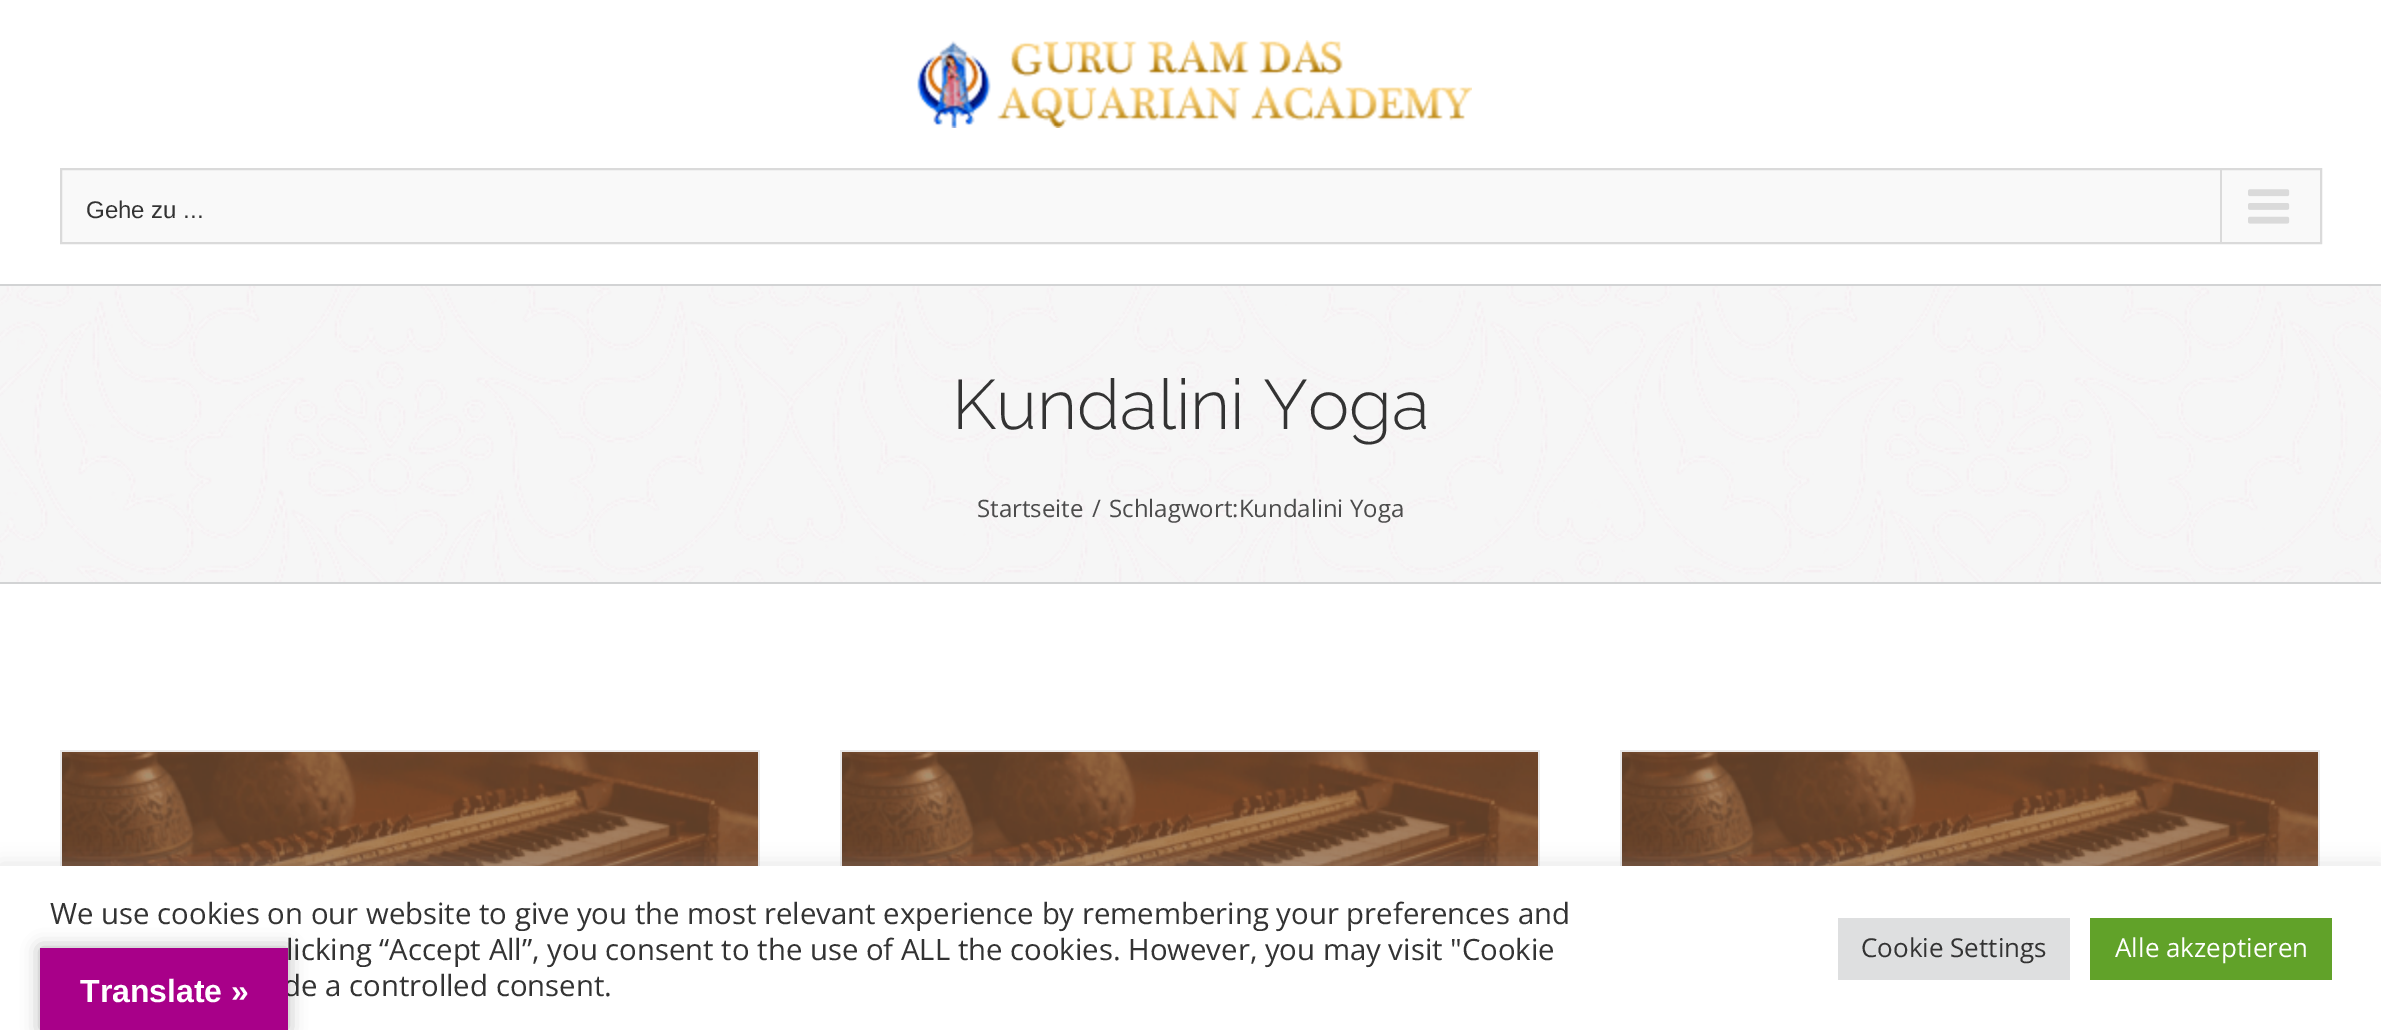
%!PS-Adobe-3.0
%%BoundingBox: 0 0 2381 1030
%%LanguageLevel: 3
%%Pages: 1
%%EndComments
%%BeginProlog
/m { moveto } bind def
/l { lineto } bind def
/h { closepath } bind def
/f { fill } bind def
/S { stroke } bind def
/q { gsave } bind def
/Q { grestore } bind def
/w { setlinewidth } bind def
/fn { [ exch dup neg 0 0 3 -1 roll 0 0 ] selectfont } def
/tx { moveto show } def
/bx { rectfill } def
/al { dup .setfillconstantalpha .setstrokeconstantalpha } def
/rr { 5 dict begin { /r /h /w /y /x } { exch def } forall
  x r add y moveto x w add y 2 copy h add r arct x w add y h add x 1 index r arct
  x y h add x y r arct x y 2 copy exch w add exch r arct closepath end } def
/sh { 12 dict begin { /a /b /q /h /w /y /x } { exch def } forall gsave /was 0 def
  9 -2 -9 { dup b mul 4 div /e exch def 1 sub .425 mul 2.718 exch exp 1 add a .99 .min exch div /now exch def
    1 1 now sub 1 was sub div sub al /was now def
    w h .min e 2 mul add 0 gt { x e sub y e sub w e 2 mul add h e 2 mul add
      q e add b .6 mul add w h .min 2 div e add .min 0 .max rr fill } if } for grestore end } def
/im { 5 dict begin { /h /w /y /x /name } { exch def } forall
  gsave x y translate w h scale
  w h 8 [w 0 0 h 0 0] name (r) file false 3 colorimage grestore end } def
%%EndProlog
%%BeginSetup
<< /PageSize [2381 1030] /PageUsesTransparency true >> setpagedevice
%%EndSetup
%%Page: 1 1
0 .pushpdf14devicefilter
0 1030 translate 1 -1 scale
4 setmiterlimit
1 setgray
0 0 2381 1030 bx
(image0.raw) 917 40 555 88 im
0.976 setgray
61 169 m 2321 169 l 2321 243 l 61 243 l h q f Q
0.855 setgray
2 w
S
/LiberationSans-Regular 24 fn
0.2 setgray
(Gehe zu ...) 86 218 tx
0.855 setgray
2220 170 2 72 bx
(image1.raw) 2248 189 42 35 im
0.965 setgray
0 286 2381 296 bx
(image2.raw) 0 286 2381 296 im
0.824 0.827 0.831 setrgbcolor
0 284 2381 2 bx
0 582 2381 2 bx
/Raleway-Light 69.75 fn
0.2 setgray
(Kundalini Yoga) 952 429 tx
/OpenSans-Regular 24 fn
0.298 setgray
(Startseite) 977 517 tx
(/) 1092 517 tx
(Schlagwort:Kundalini Yoga) 1109 517 tx
0.918 0.914 0.914 setrgbcolor
60 750 700 2 bx
758 750 2 116 bx
60 750 2 116 bx
(image3.raw) 62 752 696 114 im
840 750 700 2 bx
1538 750 2 116 bx
840 750 2 116 bx
(image4.raw) 842 752 696 114 im
1620 750 700 2 bx
2318 750 2 116 bx
1620 750 2 116 bx
(image5.raw) 1622 752 696 114 im
0.675 0.671 0.671 setrgbcolor
0 864 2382 164 0 10 0.3 sh
1 setgray
0 866 2381 164 bx
/OpenSans-Regular 29.33 fn
0.2 setgray
(We use cookies on our website to give you the most relevant experience by remembering your preferences and) 50 924 tx
(licking “Accept All”, you consent to the use of ALL the cookies. However, you may visit "Cookie) 286 960 tx
(de a controlled consent.) 283 996 tx
0.871 0.875 0.878 setrgbcolor
1838 918 232 62 bx
/OpenSans-Regular 26 fn
0.2 setgray
(Cookie Settings) 1861 957 tx
0.38 0.635 0.161 setrgbcolor
2090 918 242 62 bx
1 setgray
(Alle akzeptieren) 2115 957 tx
0 setgray
40 948 248 82 0 9 0.3 sh
0.659 0 0.537 setrgbcolor
40 948 248 82 bx
/LiberationSans-Bold 32 fn
1 setgray
(Translate ») 80 1002 tx
.poppdf14devicefilter showpage
%%EOF
